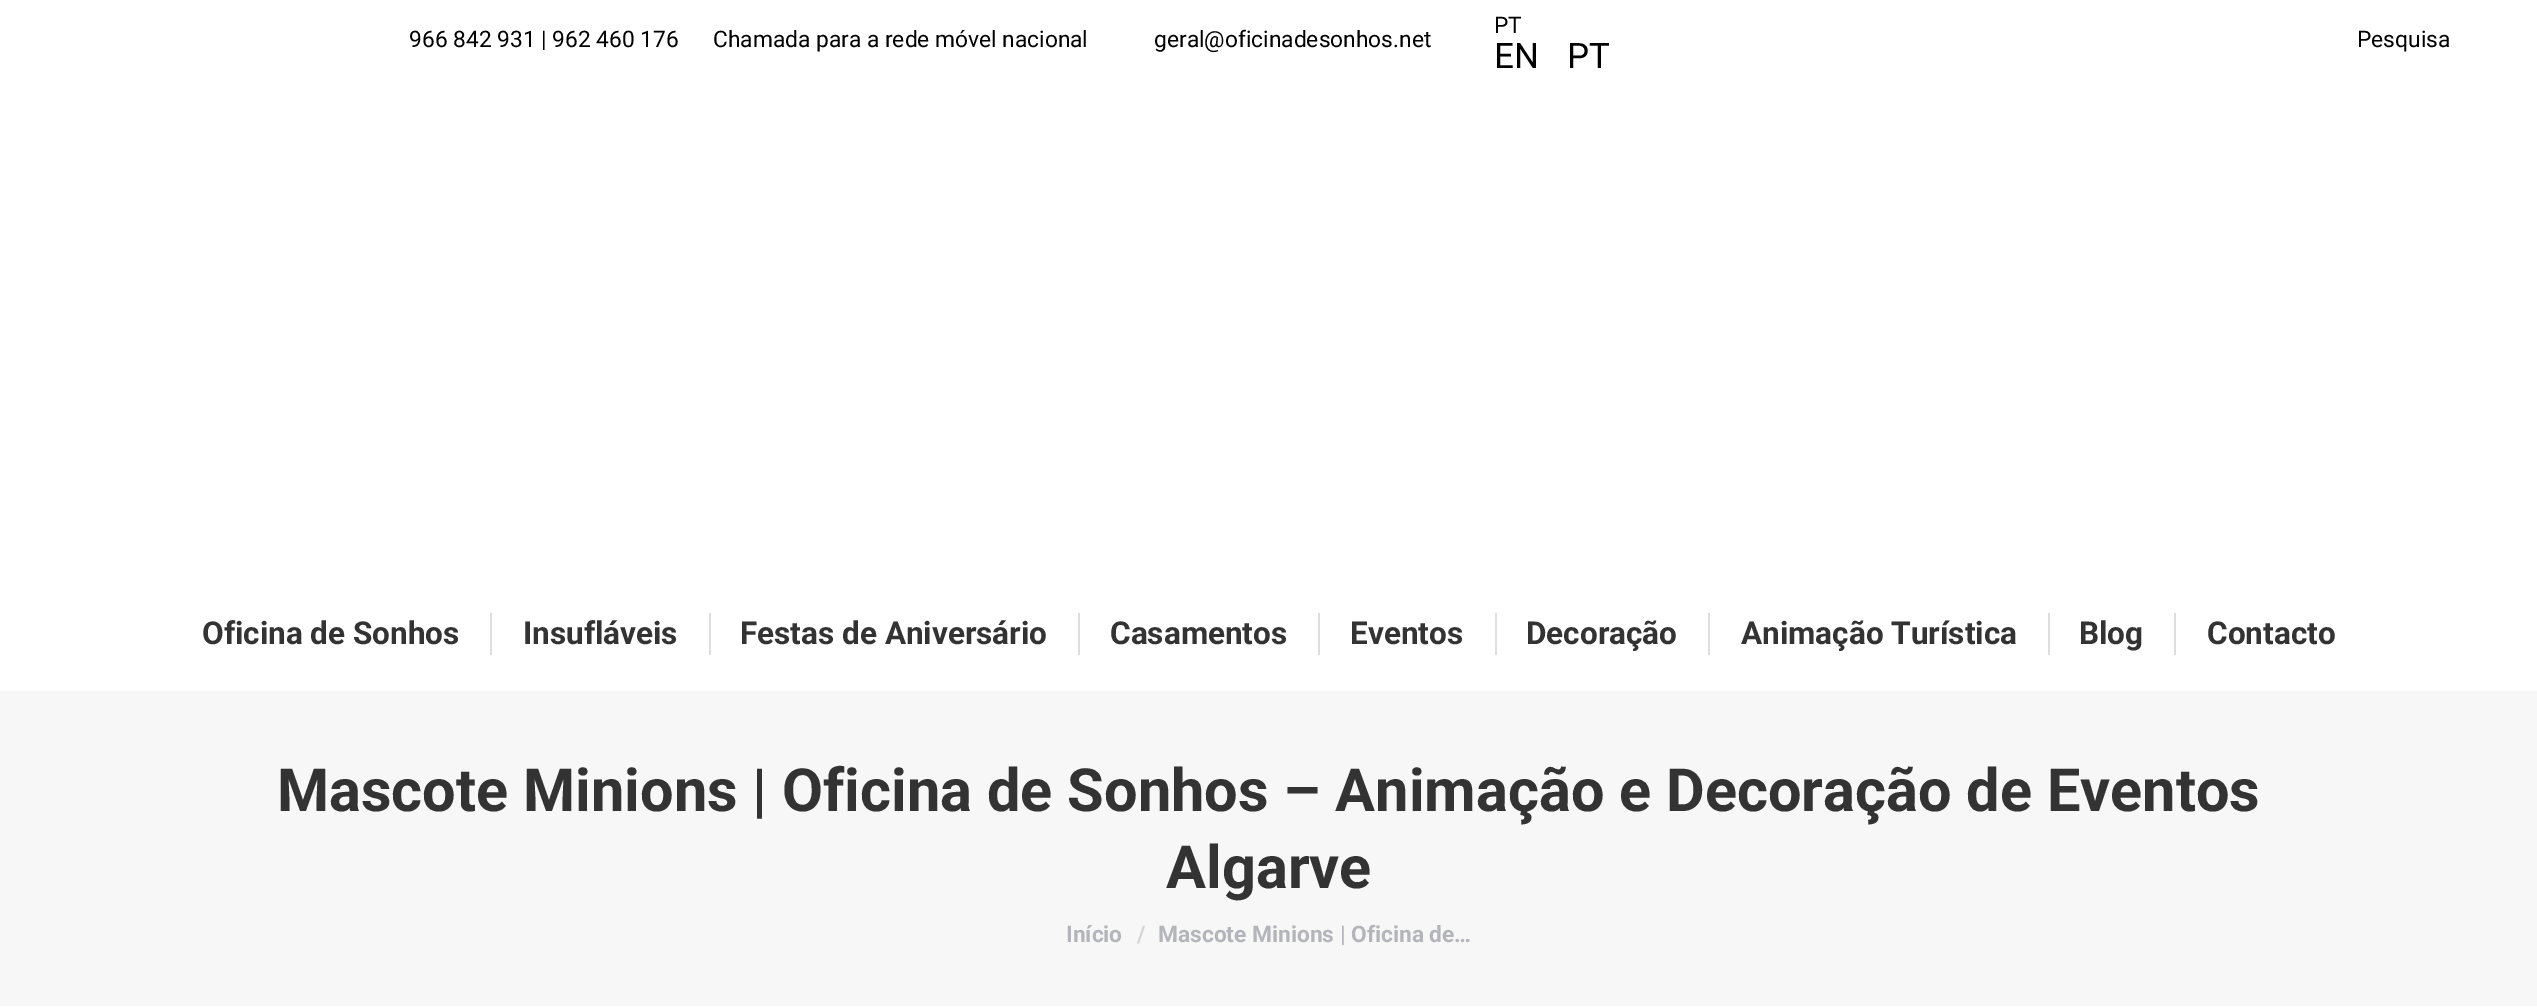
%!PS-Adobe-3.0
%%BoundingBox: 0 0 2537 1007
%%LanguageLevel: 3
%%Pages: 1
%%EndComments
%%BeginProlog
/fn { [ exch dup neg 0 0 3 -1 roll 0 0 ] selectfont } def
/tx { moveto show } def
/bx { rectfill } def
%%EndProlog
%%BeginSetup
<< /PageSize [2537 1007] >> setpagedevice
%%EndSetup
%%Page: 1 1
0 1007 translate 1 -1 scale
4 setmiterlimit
1 setgray
0 0 2537 1007 bx
/Roboto-Regular 22.75 fn
0 setgray
(966 842 931 | 962 460 176) 409 47 tx
(Chamada para a rede móvel nacional) 713 47 tx
(geral@oficinadesonhos.net) 1154 47 tx
(PT) 1494 33 tx
/Roboto-Regular 35 fn
(EN) 1494 68 tx
(PT) 1567 68 tx
/Roboto-Regular 22.75 fn
(Pesquisa) 2357 47 tx
/Roboto-Bold 31.5 fn
0.2 setgray
(Oficina de Sonhos) 202 644 tx
0.871 setgray
490 613 2 42 bx
0.2 setgray
(Insufláveis) 523 644 tx
0.871 setgray
709 613 2 42 bx
0.2 setgray
(Festas de Aniversário) 740 644 tx
0.871 setgray
1078 613 2 42 bx
0.2 setgray
(Casamentos) 1110 644 tx
0.871 setgray
1318 613 2 42 bx
0.2 setgray
(Eventos) 1350 644 tx
0.871 setgray
1495 613 2 42 bx
0.2 setgray
(Decoração) 1526 644 tx
0.871 setgray
1708 613 2 42 bx
0.2 setgray
(Animação Turística) 1741 644 tx
0.871 setgray
2048 613 2 42 bx
0.2 setgray
(Blog) 2079 644 tx
0.871 setgray
2174 613 2 42 bx
0.2 setgray
(Contacto) 2207 644 tx
0.969 setgray
0 691 2537 315 bx
/Roboto-Bold 59.5 fn
0.2 setgray
(Mascote Minions | Oficina de Sonhos – Animação e Decoração de Eventos) 277 811 tx
(Algarve) 1166 888 tx
/Roboto-Bold 22.75 fn
0.706 0.71 0.733 setrgbcolor
(Início) 1066 942 tx
0.839 0.839 0.851 setrgbcolor
(/) 1137 942 tx
0.706 0.71 0.733 setrgbcolor
(Mascote Minions | Oficina de…) 1158 942 tx
showpage
%%EOF
